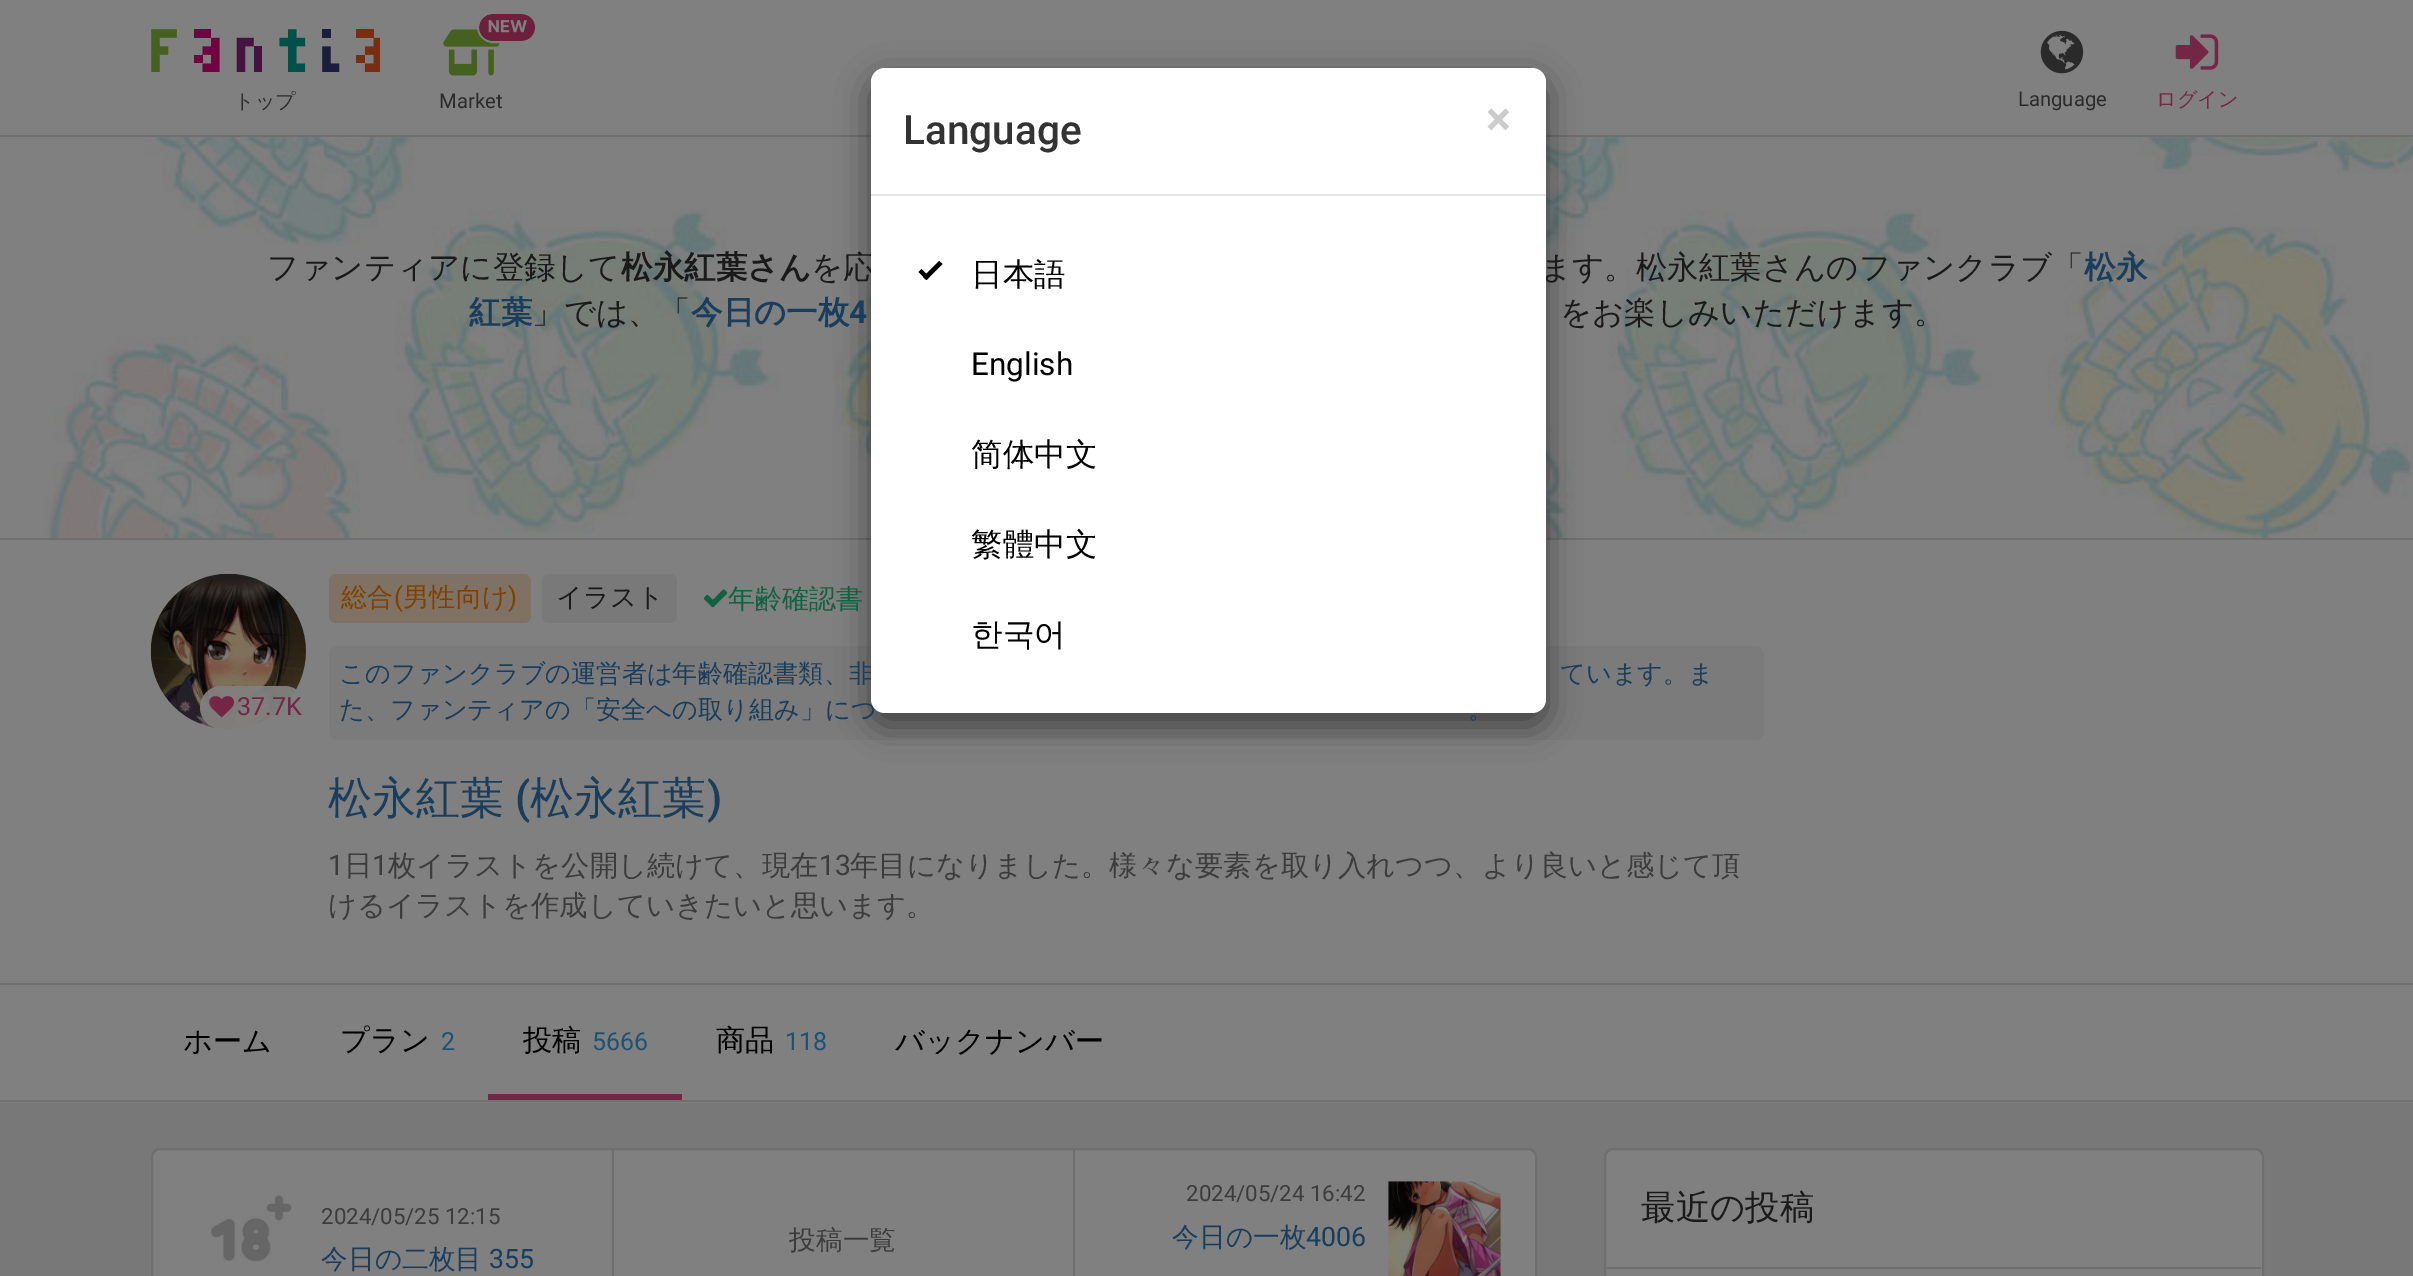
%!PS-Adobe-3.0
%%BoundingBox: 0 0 2413 1276
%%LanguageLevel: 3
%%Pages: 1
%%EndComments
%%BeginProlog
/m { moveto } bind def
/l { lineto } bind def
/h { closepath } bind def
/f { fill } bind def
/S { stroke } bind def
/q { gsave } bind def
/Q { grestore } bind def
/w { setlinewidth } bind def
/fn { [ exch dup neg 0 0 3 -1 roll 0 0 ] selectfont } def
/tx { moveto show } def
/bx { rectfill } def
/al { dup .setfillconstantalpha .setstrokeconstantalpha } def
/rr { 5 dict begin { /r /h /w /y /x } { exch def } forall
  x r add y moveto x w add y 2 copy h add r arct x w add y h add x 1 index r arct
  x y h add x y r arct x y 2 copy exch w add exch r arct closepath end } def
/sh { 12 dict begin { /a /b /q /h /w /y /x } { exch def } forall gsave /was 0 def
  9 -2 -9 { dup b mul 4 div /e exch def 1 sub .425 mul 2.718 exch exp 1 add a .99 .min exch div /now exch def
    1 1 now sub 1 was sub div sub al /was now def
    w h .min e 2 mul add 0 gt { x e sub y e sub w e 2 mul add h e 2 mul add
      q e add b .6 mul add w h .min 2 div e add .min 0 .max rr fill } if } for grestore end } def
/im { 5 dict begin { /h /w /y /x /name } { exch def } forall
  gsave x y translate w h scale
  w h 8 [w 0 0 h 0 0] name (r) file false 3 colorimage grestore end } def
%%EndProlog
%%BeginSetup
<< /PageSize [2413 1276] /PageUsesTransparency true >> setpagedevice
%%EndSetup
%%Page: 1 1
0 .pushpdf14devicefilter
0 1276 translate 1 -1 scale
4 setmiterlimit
0.471 setgray
0 0 2413 1276 bx
0.502 setgray
0 0 2413 135 bx
0.435 setgray
0 135 2413 2 bx
(image0.raw) 151 29 229 43 im
/WenQuanYiZenHei-Medium 20.25 fn
0.169 setgray
(トップ) 234 108 tx
(image1.raw) 443 29 57 47 im
0.502 setgray
2 w
478 12 59 30 15 rr S
(image2.raw) 479 14 56 27 im
/Roboto-Regular 20.25 fn
0.169 setgray
(Market) 439 108 tx
(image3.raw) 2040 30 44 44 im
(Language) 2018 106 tx
(image4.raw) 2175 34 44 36 im
/WenQuanYiZenHei-Medium 20.25 fn
0.459 0.149 0.271 setrgbcolor
(ログイン) 2156 106 tx
0.502 setgray
0 137 2413 401 bx
(image5.raw) 44 137 2369 401 im
0.435 setgray
0 538 2413 2 bx
0.502 setgray
0 540 2413 563 bx
0.482 setgray
329 646 1435 94 9 rr f
0 setgray
871 79 675 646 14 17 0.5 sh
/WenQuanYiZenHei-Medium 31.5 fn
0.102 setgray
(を応) 811 278 tx
/WenQuanYiZenHei-Medium 25.2 fn
0.102 0.239 0.361 setrgbcolor
(このファンクラブの運営者は年齢確認書類、非) 339 682 tx
(た、ファンティアの「安全への取り組み」につ) 339 718 tx
1 setgray
871 68 675 645 14 rr f
0.898 setgray
871 194 675 2 bx
/Roboto-Medium 40.5 fn
0.2 setgray
(Language) 903 144 tx
/Roboto-Bold 47 fn
0.8 setgray
(×) 1486 135 tx
0 setgray
923 277 m 939 261 l 942.5 264 l 926.5 280 l h f
918.5 272 m 921.5 269 l 929.5 277 l 926.5 280 l h f
/WenQuanYiZenHei-Medium 31.5 fn
(日本語) 971 285 tx
/Roboto-Regular 31.5 fn
(English) 971 375 tx
/WenQuanYiZenHei-Medium 31.5 fn
(简体中文) 971 465 tx
(繁體中文) 971 555 tx
(한국어) 971 645 tx
0.102 setgray
(ファンティアに登録して) 267 278 tx
/WenQuanYiZenHei-Bold 31.5 fn
(松永紅葉さん) 621 278 tx
/WenQuanYiZenHei-Medium 31.5 fn
(ます。松永紅葉さんのファンクラブ「) 1540 278 tx
/WenQuanYiZenHei-Bold 31.5 fn
0.102 0.239 0.361 setrgbcolor
(松永) 2084 278 tx
(紅葉) 469 323 tx
/WenQuanYiZenHei-Medium 31.5 fn
0.102 setgray
(」では、「) 532 323 tx
/WenQuanYiZenHei-Bold 31.5 fn
0.102 0.239 0.361 setrgbcolor
(今日の一枚) 691 323 tx
/Roboto-Bold 31.5 fn
(4) 849 323 tx
/WenQuanYiZenHei-Medium 31.5 fn
0.102 setgray
(をお楽しみいただけます。) 1560 323 tx
0.435 setgray
0 983 2413 2 bx
(image6.raw) 150 573 156 156 im
0.95 al
0.502 setgray
200 686 106 43 21.5 rr f
1 al
(image7.raw) 209 696 25 22 im
/Roboto-Regular 25 fn
0.459 0.149 0.271 setrgbcolor
(37.7K) 237 715 tx
0.498 0.447 0.392 setrgbcolor
329 574 202 49 7 rr f
/WenQuanYiZenHei-Medium 26.25 fn
0.502 0.251 0 setrgbcolor
(総合) 341 606 tx
/Roboto-Regular 26.25 fn
(\() 394 606 tx
/WenQuanYiZenHei-Medium 26.25 fn
(男性向け) 403 606 tx
/Roboto-Regular 26.25 fn
(\)) 508 606 tx
0.475 setgray
542 574 135 49 7 rr f
/WenQuanYiZenHei-Medium 26.25 fn
0.102 setgray
(イラスト) 556 606 tx
(image8.raw) 703 589 25 19 im
/WenQuanYiZenHei-Medium 27 fn
0.067 0.38 0.259 setrgbcolor
(年齢確認書) 728 608 tx
/WenQuanYiZenHei-Medium 25.2 fn
0.102 0.239 0.361 setrgbcolor
(ています。ま) 1560 682 tx
(。) 1468 718 tx
/WenQuanYiZenHei-Medium 44 fn
(松永紅葉) 328 813 tx
/Roboto-Medium 44 fn
(\() 515 813 tx
/WenQuanYiZenHei-Medium 44 fn
(松永紅葉) 530 813 tx
/Roboto-Medium 44 fn
(\)) 707 813 tx
/Roboto-Regular 28.35 fn
0.235 setgray
(1) 328 875 tx
/WenQuanYiZenHei-Medium 28.35 fn
(日) 344 875 tx
/Roboto-Regular 28.35 fn
(1) 372 875 tx
/WenQuanYiZenHei-Medium 28.35 fn
(枚イラストを公開し続けて、現在) 388 875 tx
/Roboto-Regular 28.35 fn
(13) 819 875 tx
/WenQuanYiZenHei-Medium 28.35 fn
(年目になりました。様々な要素を取り入れつつ、より良いと感じて頂) 850 875 tx
(けるイラストを作成していきたいと思います。) 328 915 tx
0.435 setgray
0 1100 2413 2 bx
/WenQuanYiZenHei-Medium 29.25 fn
0 setgray
(ホーム) 183 1051 tx
(プラン) 340 1050 tx
/Roboto-Regular 25 fn
0.114 0.322 0.447 setrgbcolor
(2) 441 1050 tx
/WenQuanYiZenHei-Medium 29.25 fn
0 setgray
(投稿) 523 1050 tx
/Roboto-Regular 25 fn
0.114 0.322 0.447 setrgbcolor
(5666) 592 1050 tx
0.459 0.149 0.271 setrgbcolor
488 1094 194 6 bx
/WenQuanYiZenHei-Medium 29.25 fn
0 setgray
(商品) 716 1050 tx
/Roboto-Regular 25 fn
0.114 0.322 0.447 setrgbcolor
(118) 785 1050 tx
/WenQuanYiZenHei-Medium 29.25 fn
0 setgray
(バックナンバー) 895 1051 tx
0.502 setgray
152 1149 1384 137 8 rr q f Q
0.435 setgray
S
612 1150 2 126 bx
(image9.raw) 211 1195 81 67 im
/Roboto-Regular 22.25 fn
0.235 setgray
(2024/05/25 12:15) 321 1224 tx
/WenQuanYiZenHei-Medium 26.75 fn
0.102 0.239 0.361 setrgbcolor
(今日の二枚目) 321 1268 tx
/Roboto-Regular 26.75 fn
(355) 489 1268 tx
0.435 setgray
1073 1150 2 126 bx
/WenQuanYiZenHei-Medium 26.75 fn
0.235 setgray
(投稿一覧) 789 1249 tx
/Roboto-Regular 22.25 fn
(2024/05/24 16:42) 1186 1201 tx
/WenQuanYiZenHei-Medium 26.75 fn
0.102 0.239 0.361 setrgbcolor
(今日の一枚) 1172 1246 tx
/Roboto-Regular 26.75 fn
(4006) 1306 1246 tx
(image10.raw) 1388 1181 113 95 im
0.502 setgray
1605 1149 658 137 8 rr q f Q
0.435 setgray
S
1607 1267 654 2 bx
/WenQuanYiZenHei-Medium 34.5 fn
0.102 setgray
(最近の投稿) 1641 1219 tx
.poppdf14devicefilter showpage
%%EOF
